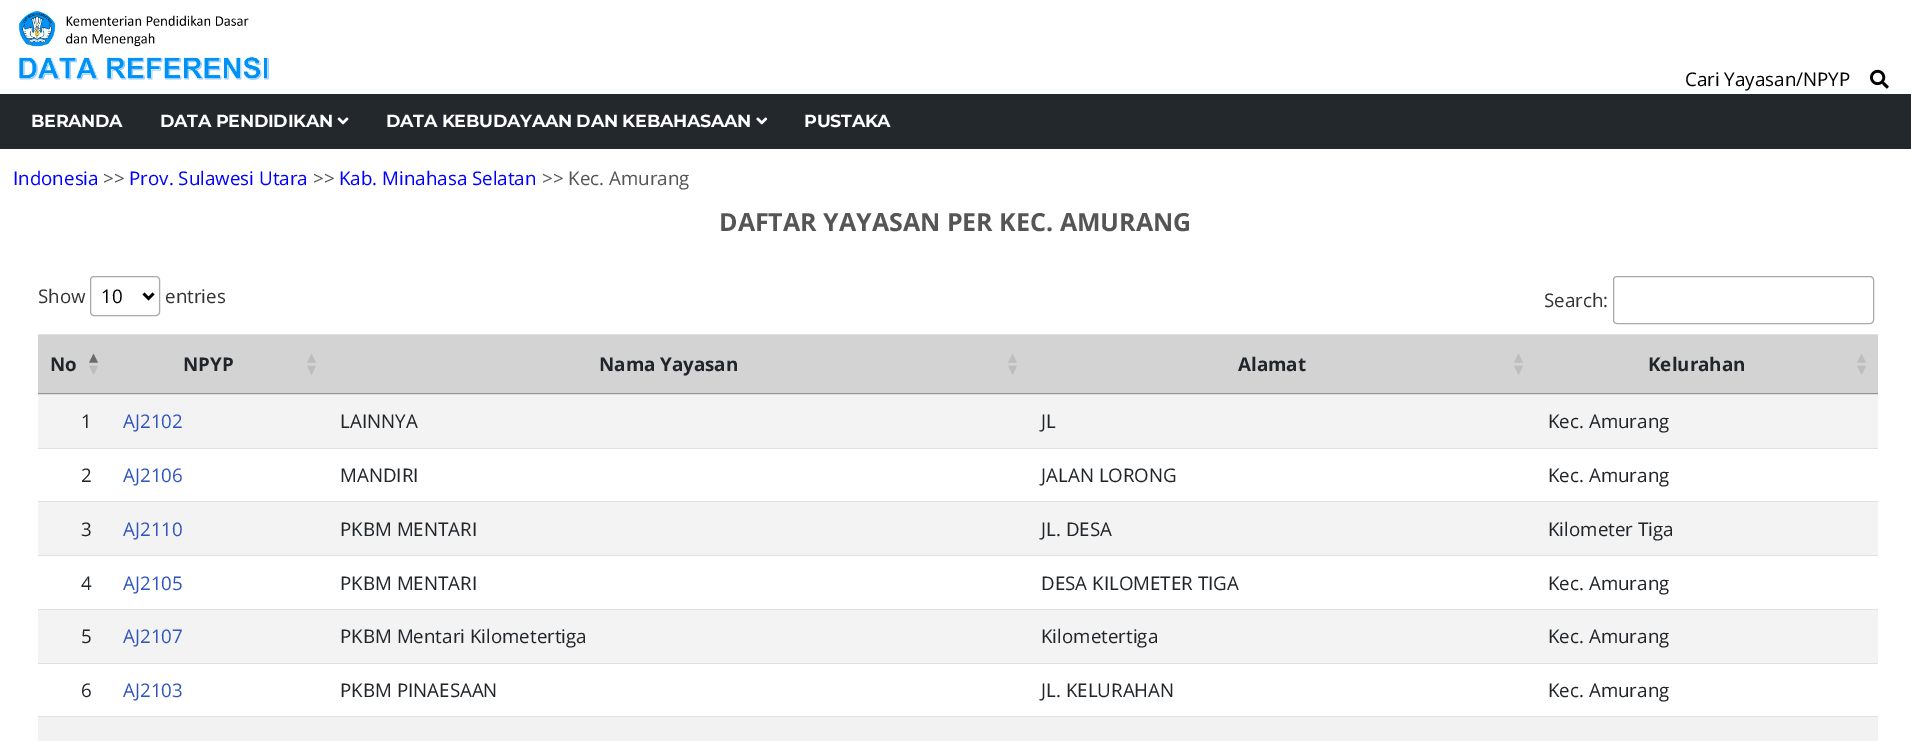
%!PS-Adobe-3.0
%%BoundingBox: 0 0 1911 741
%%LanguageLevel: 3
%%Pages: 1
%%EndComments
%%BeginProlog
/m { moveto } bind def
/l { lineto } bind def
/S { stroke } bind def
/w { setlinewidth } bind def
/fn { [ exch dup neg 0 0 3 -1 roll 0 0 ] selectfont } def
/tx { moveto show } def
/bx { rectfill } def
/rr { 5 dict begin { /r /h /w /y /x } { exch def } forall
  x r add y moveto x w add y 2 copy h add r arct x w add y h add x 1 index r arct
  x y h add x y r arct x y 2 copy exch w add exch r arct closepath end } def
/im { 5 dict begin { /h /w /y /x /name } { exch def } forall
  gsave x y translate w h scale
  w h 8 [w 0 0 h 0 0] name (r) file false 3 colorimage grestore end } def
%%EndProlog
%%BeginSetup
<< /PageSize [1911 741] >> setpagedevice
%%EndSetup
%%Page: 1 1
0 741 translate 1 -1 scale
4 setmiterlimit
1 setgray
0 0 1911 741 bx
0.137 0.157 0.176 setrgbcolor
0 94 1911 55 bx
(image0.raw) 19 10 250 70 im
/OpenSans-Regular 18.75 fn
0 setgray
(Cari Yayasan/NPYP) 1685 86 tx
(image1.raw) 1870 69 19 20 im
/Montserrat-Bold 17.5 fn
1 setgray
31 127 m -0.25 0 (BERANDA) ashow
160 127 m -0.25 0 (DATA PENDIDIKAN) ashow
(image2.raw) 337 117 12 8 im
386 127 m -0.25 0 (DATA KEBUDAYAAN DAN KEBAHASAAN) ashow
(image3.raw) 756 117 12 8 im
804 127 m -0.25 0 (PUSTAKA) ashow
/OpenSans-Regular 18.75 fn
0 0 1 setrgbcolor
(Indonesia) 13 185 tx
0.333 setgray
(>>) 103 185 tx
0 0 1 setrgbcolor
(Prov. Sulawesi Utara) 129 185 tx
0.333 setgray
(>>) 313 185 tx
0 0 1 setrgbcolor
(Kab. Minahasa Selatan) 339 185 tx
0.333 setgray
(>> Kec. Amurang) 542 185 tx
/OpenSans-Bold 25 fn
(DAFTAR YAYASAN PER KEC. AMURANG) 719 231 tx
/OpenSans-Regular 18.75 fn
0.2 setgray
(Show) 38 303 tx
0.667 setgray
90.5 276.5 69 39 3.5 rr S
0 setgray
2.5 w
143.5 293.5 m 148.5 298.5 l 153.5 293.5 l S
(10) 101 303 tx
0.2 setgray
(entries) 165 303 tx
(Search:) 1544 307 tx
0.667 setgray
1 w
1613.5 276.5 260 47 3.5 rr S
0.827 setgray
38 335 1840 58 bx
0.871 0.886 0.902 setrgbcolor
38 334 1840 1 bx
0.58 setgray
38 393 1840 1 bx
/OpenSans-Bold 18.75 fn
0.129 0.145 0.161 setrgbcolor
(No) 50 371 tx
/DejaVuSans-Bold 17 fn
0.408 0.42 0.427 setrgbcolor
(▴) 89 363 tx
0.741 0.741 0.745 setrgbcolor
(▾) 89 375 tx
/OpenSans-Bold 18.75 fn
0.129 0.145 0.161 setrgbcolor
(NPYP) 183 371 tx
/DejaVuSans-Bold 17 fn
0.741 0.741 0.745 setrgbcolor
(▴) 307 363 tx
(▾) 307 375 tx
/OpenSans-Bold 18.75 fn
0.129 0.145 0.161 setrgbcolor
(Nama Yayasan) 599 371 tx
/DejaVuSans-Bold 17 fn
0.741 0.741 0.745 setrgbcolor
(▴) 1008 363 tx
(▾) 1008 375 tx
/OpenSans-Bold 18.75 fn
0.129 0.145 0.161 setrgbcolor
(Alamat) 1238 371 tx
/DejaVuSans-Bold 17 fn
0.741 0.741 0.745 setrgbcolor
(▴) 1514 363 tx
(▾) 1514 375 tx
/OpenSans-Bold 18.75 fn
0.129 0.145 0.161 setrgbcolor
(Kelurahan) 1648 371 tx
/DejaVuSans-Bold 17 fn
0.741 0.741 0.745 setrgbcolor
(▴) 1857 363 tx
(▾) 1857 375 tx
0.953 setgray
38 395 1840 53 bx
0.871 0.886 0.902 setrgbcolor
38 394 1840 1 bx
/OpenSans-Regular 18.75 fn
0.129 0.145 0.161 setrgbcolor
(1) 81 428 tx
0.188 0.333 0.745 setrgbcolor
(AJ2102) 123 428 tx
0.129 0.145 0.161 setrgbcolor
(LAINNYA) 340 428 tx
(JL) 1041 428 tx
(Kec. Amurang) 1548 428 tx
0.871 0.886 0.902 setrgbcolor
38 448 1840 1 bx
0.129 0.145 0.161 setrgbcolor
(2) 81 482 tx
0.188 0.333 0.745 setrgbcolor
(AJ2106) 123 482 tx
0.129 0.145 0.161 setrgbcolor
(MANDIRI) 340 482 tx
(JALAN LORONG) 1041 482 tx
(Kec. Amurang) 1548 482 tx
0.953 setgray
38 502 1840 53 bx
0.871 0.886 0.902 setrgbcolor
38 501 1840 1 bx
0.129 0.145 0.161 setrgbcolor
(3) 81 536 tx
0.188 0.333 0.745 setrgbcolor
(AJ2110) 123 536 tx
0.129 0.145 0.161 setrgbcolor
(PKBM MENTARI) 340 536 tx
(JL. DESA) 1041 536 tx
(Kilometer Tiga) 1548 536 tx
0.871 0.886 0.902 setrgbcolor
38 555 1840 1 bx
0.129 0.145 0.161 setrgbcolor
(4) 81 590 tx
0.188 0.333 0.745 setrgbcolor
(AJ2105) 123 590 tx
0.129 0.145 0.161 setrgbcolor
(PKBM MENTARI) 340 590 tx
(DESA KILOMETER TIGA) 1041 590 tx
(Kec. Amurang) 1548 590 tx
0.953 setgray
38 610 1840 53 bx
0.871 0.886 0.902 setrgbcolor
38 609 1840 1 bx
0.129 0.145 0.161 setrgbcolor
(5) 81 643 tx
0.188 0.333 0.745 setrgbcolor
(AJ2107) 123 643 tx
0.129 0.145 0.161 setrgbcolor
(PKBM Mentari Kilometertiga) 340 643 tx
(Kilometertiga) 1041 643 tx
(Kec. Amurang) 1548 643 tx
0.871 0.886 0.902 setrgbcolor
38 663 1840 1 bx
0.129 0.145 0.161 setrgbcolor
(6) 81 697 tx
0.188 0.333 0.745 setrgbcolor
(AJ2103) 123 697 tx
0.129 0.145 0.161 setrgbcolor
(PKBM PINAESAAN) 340 697 tx
(JL. KELURAHAN) 1041 697 tx
(Kec. Amurang) 1548 697 tx
0.949 setgray
38 717 1840 24 bx
0.871 0.886 0.902 setrgbcolor
38 716 1840 1 bx
showpage
%%EOF
